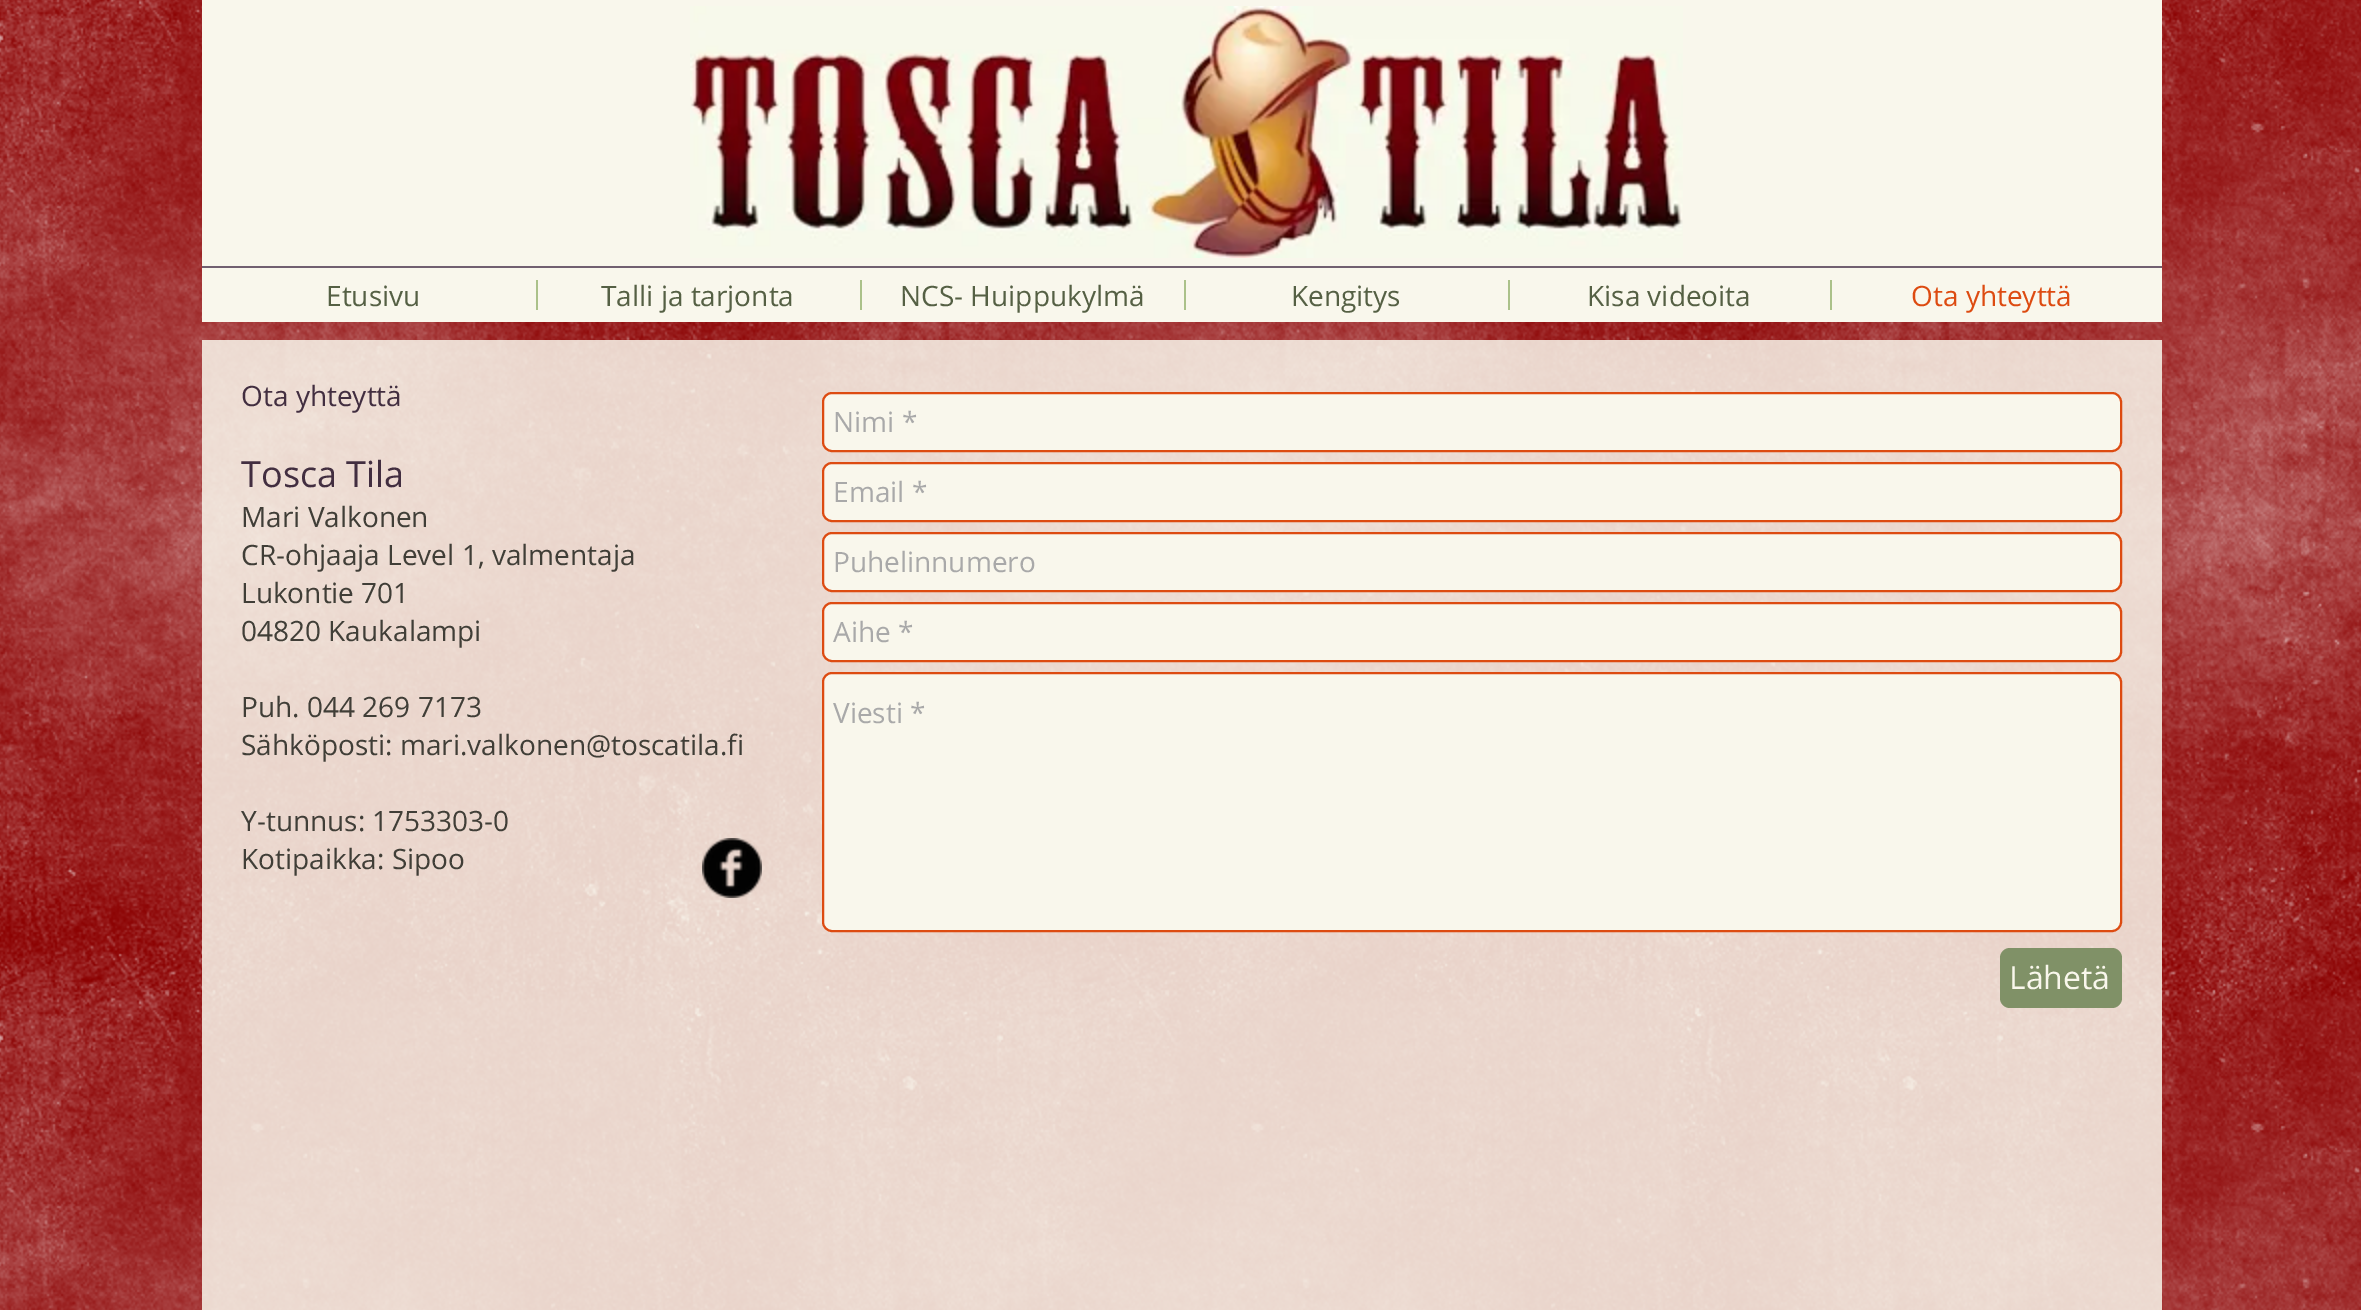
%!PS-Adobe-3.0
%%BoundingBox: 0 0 2361 1310
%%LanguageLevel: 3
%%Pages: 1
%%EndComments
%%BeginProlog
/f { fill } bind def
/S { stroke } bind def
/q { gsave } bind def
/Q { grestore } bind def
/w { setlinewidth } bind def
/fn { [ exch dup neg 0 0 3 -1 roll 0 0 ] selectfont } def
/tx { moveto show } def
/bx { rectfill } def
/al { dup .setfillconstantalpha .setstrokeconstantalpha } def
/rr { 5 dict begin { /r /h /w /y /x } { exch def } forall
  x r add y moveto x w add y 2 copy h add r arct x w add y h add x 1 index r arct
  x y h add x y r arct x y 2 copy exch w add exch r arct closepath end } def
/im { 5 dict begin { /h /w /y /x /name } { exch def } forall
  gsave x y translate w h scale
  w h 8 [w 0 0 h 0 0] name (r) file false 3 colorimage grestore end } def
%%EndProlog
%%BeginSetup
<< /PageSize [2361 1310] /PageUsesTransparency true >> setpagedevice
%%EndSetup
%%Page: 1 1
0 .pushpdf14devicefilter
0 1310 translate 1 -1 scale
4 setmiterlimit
0.545 0 0 setrgbcolor
0 0 2361 1310 bx
(image0.raw) 0 0 2361 1310 im
0.976 0.969 0.925 setrgbcolor
202 0 1960 322 bx
(image1.raw) 690 6 993 252 im
0.443 0.376 0.439 setrgbcolor
202 266 1960 2 bx
/OpenSans-Regular 28 fn
0.333 0.376 0.267 setrgbcolor
(Etusivu) 326 306 tx
0.671 0.757 0.537 setrgbcolor
536 280 2 30 bx
0.333 0.376 0.267 setrgbcolor
(Talli ja tarjonta) 601 306 tx
0.671 0.757 0.537 setrgbcolor
860 280 2 30 bx
0.333 0.376 0.267 setrgbcolor
(NCS- Huippukylmä) 900 306 tx
0.671 0.757 0.537 setrgbcolor
1184 280 2 30 bx
0.333 0.376 0.267 setrgbcolor
(Kengitys) 1291 306 tx
0.671 0.757 0.537 setrgbcolor
1508 280 2 30 bx
0.333 0.376 0.267 setrgbcolor
(Kisa videoita) 1587 306 tx
0.671 0.757 0.537 setrgbcolor
1830 280 2 30 bx
0.867 0.294 0.067 setrgbcolor
(Ota yhteyttä) 1911 306 tx
0.85 al
0.976 0.969 0.925 setrgbcolor
202 340 1960 970 bx
1 al
0.259 0.18 0.251 setrgbcolor
(Ota yhteyttä) 241 406 tx
/OpenSans-Regular 36 fn
(Tosca Tila) 241 487 tx
/OpenSans-Regular 28 fn
0.251 0.243 0.216 setrgbcolor
(Mari Valkonen) 241 527 tx
(CR-ohjaaja Level 1, valmentaja) 241 565 tx
(Lukontie 701) 241 603 tx
(04820 Kaukalampi) 241 641 tx
(Puh. 044 269 7173) 241 717 tx
(Sähköposti: mari.valkonen@toscatila.fi) 241 755 tx
(Y-tunnus: 1753303-0) 241 831 tx
(Kotipaikka: Sipoo) 241 869 tx
0.976 0.969 0.925 setrgbcolor
823 393 1298 58 9 rr q f Q
0.867 0.294 0.067 setrgbcolor
2 w
S
0.663 setgray
(Nimi *) 833 432 tx
0.976 0.969 0.925 setrgbcolor
823 463 1298 58 9 rr q f Q
0.867 0.294 0.067 setrgbcolor
S
0.663 setgray
(Email *) 833 502 tx
0.976 0.969 0.925 setrgbcolor
823 533 1298 58 9 rr q f Q
0.867 0.294 0.067 setrgbcolor
S
0.663 setgray
(Puhelinnumero) 833 572 tx
0.976 0.969 0.925 setrgbcolor
823 603 1298 58 9 rr q f Q
0.867 0.294 0.067 setrgbcolor
S
0.663 setgray
(Aihe *) 833 642 tx
0.976 0.969 0.925 setrgbcolor
823 673 1298 258 9 rr q f Q
0.867 0.294 0.067 setrgbcolor
S
0.663 setgray
(Viesti *) 833 723 tx
0.502 0.569 0.404 setrgbcolor
2000 948 122 60 10 rr f
/OpenSans-Regular 32 fn
0.976 0.969 0.925 setrgbcolor
(Lähetä) 2009 989 tx
(image2.raw) 702 838 60 60 im
.poppdf14devicefilter showpage
%%EOF
